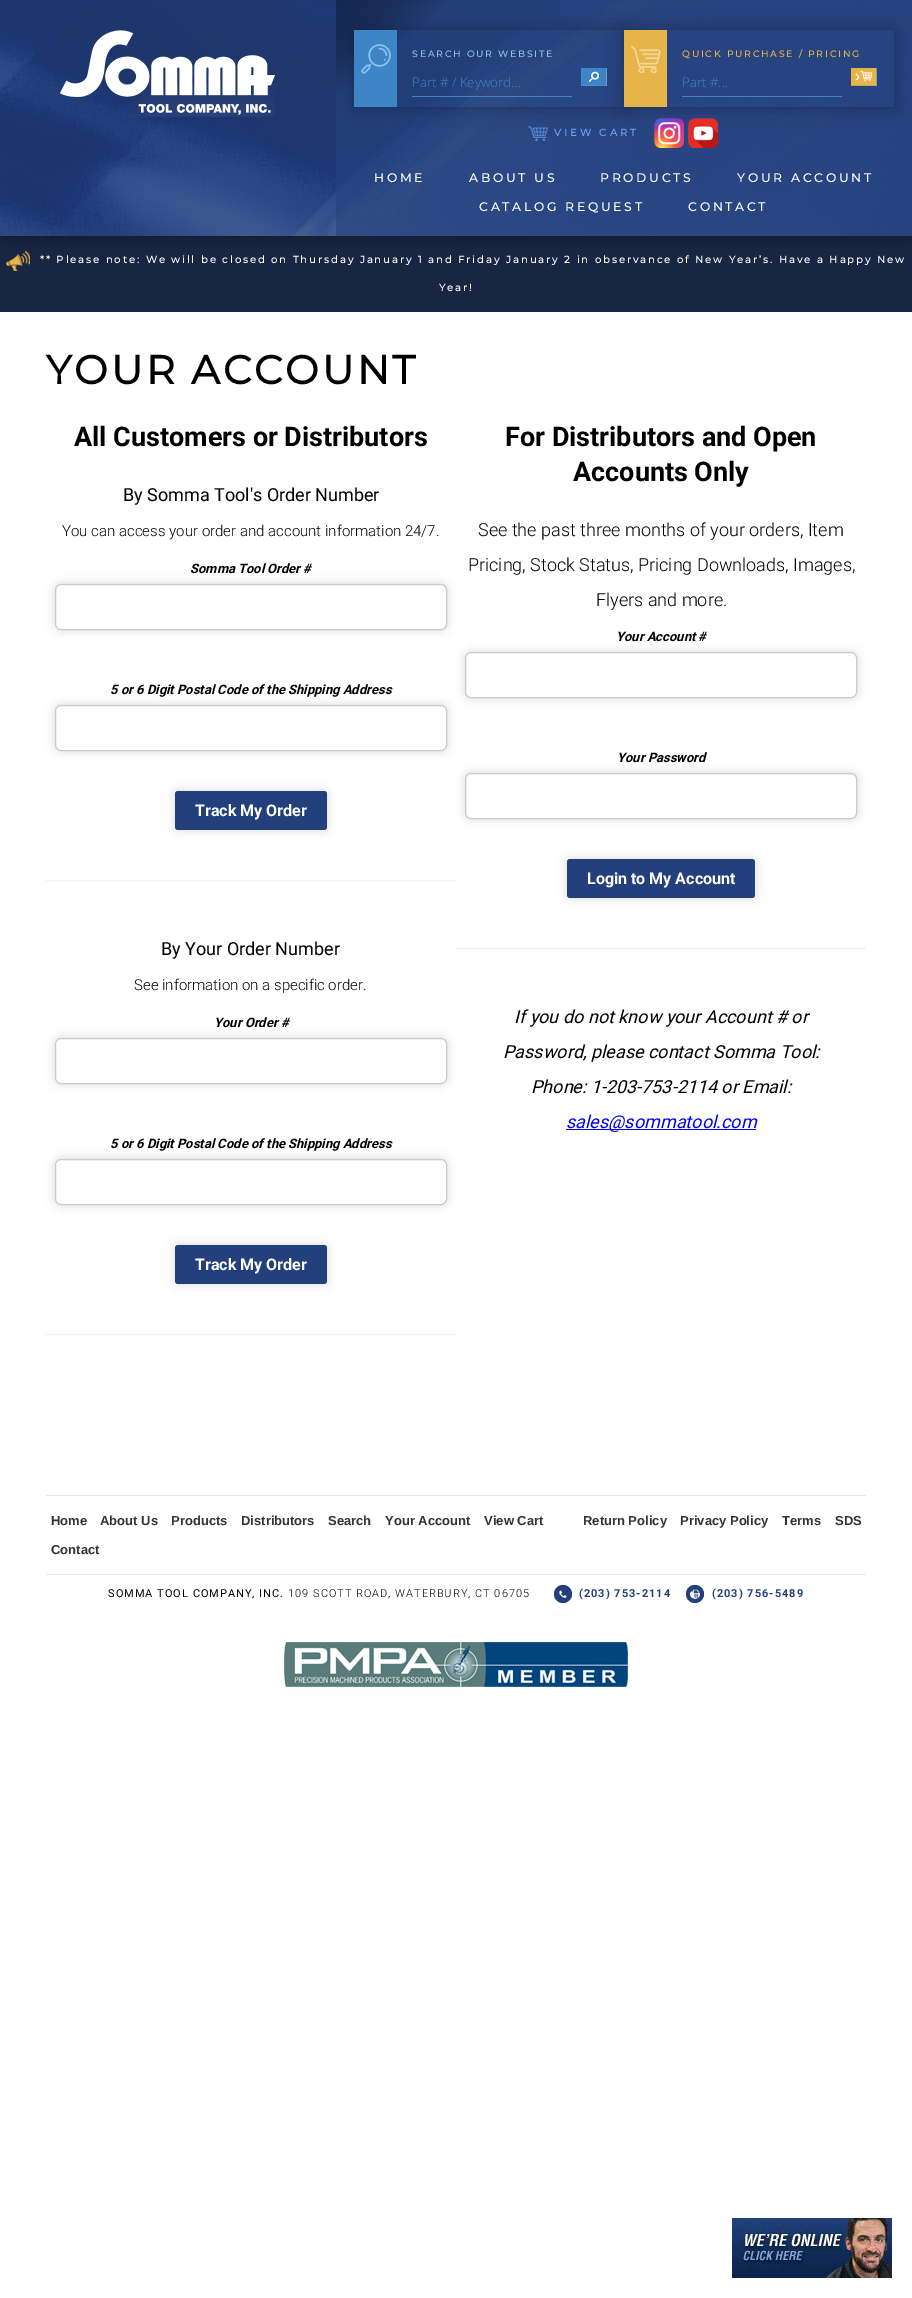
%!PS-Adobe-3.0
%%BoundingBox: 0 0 912 2298
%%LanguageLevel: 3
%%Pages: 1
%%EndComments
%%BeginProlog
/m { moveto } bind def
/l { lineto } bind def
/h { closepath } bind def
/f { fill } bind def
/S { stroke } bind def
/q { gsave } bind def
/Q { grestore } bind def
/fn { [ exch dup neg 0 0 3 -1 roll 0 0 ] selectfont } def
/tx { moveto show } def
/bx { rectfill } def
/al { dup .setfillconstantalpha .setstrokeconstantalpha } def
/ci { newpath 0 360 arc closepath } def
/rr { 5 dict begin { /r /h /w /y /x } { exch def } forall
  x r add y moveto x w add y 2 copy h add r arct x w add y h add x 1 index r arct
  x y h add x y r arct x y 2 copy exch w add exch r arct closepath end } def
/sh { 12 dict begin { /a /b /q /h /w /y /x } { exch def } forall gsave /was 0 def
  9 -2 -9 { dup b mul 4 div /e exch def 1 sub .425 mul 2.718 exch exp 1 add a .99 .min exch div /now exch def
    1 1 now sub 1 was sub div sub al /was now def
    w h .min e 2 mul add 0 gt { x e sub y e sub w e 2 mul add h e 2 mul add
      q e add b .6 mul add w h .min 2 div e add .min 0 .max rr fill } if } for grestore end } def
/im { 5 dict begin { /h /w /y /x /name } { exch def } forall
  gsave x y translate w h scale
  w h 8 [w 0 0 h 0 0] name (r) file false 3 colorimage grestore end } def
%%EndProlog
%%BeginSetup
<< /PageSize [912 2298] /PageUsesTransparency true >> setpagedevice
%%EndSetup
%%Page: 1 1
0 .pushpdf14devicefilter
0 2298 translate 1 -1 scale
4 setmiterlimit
1 setgray
0 0 912 2298 bx
0.094 0.149 0.263 setrgbcolor
0 236 912 76 bx
(image9.raw) 6 251 24 20 im
0 setgray
0 0 912 236 0 10 0.4 sh
(image0.raw) 0 0 912 236 im
(image1.raw) 60 30 215 87 im
q
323 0 m 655 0 l 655 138 l 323 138 l h 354 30 m 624 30 l 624 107 l 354 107 l h eoclip newpath
354 30 270 77 0 10 0.3 sh
Q
0.239 0.522 0.776 setrgbcolor
354 30 43 77 bx
(image2.raw) 361 44 30 30 im
/Montserrat-Bold 9 fn
0.561 0.761 0.937 setrgbcolor
412 57 m 2 0 (SEARCH OUR WEBSITE) ashow
0.239 0.522 0.776 setrgbcolor
412 96 160 1 bx
/OpenSans-Light 13.25 fn
(Part # / Keyword...) 412 87 tx
(image3.raw) 581 68 26 18 im
q
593 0 m 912 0 l 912 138 l 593 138 l h 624 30 m 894 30 l 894 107 l 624 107 l h eoclip newpath
0 setgray
624 30 270 77 0 10 0.3 sh
Q
0.902 0.706 0.282 setrgbcolor
624 30 43 77 bx
(image4.raw) 631 45 30 28 im
/Montserrat-Bold 9 fn
682 57 m 2 0 (QUICK PURCHASE / PRICING) ashow
0.239 0.522 0.776 setrgbcolor
682 96 160 1 bx
/OpenSans-Light 13.25 fn
(Part #...) 682 87 tx
(image5.raw) 851 68 26 18 im
(image6.raw) 528 126 20 15 im
/Montserrat-Bold 10 fn
0.451 0.624 0.988 setrgbcolor
554 136 m 3 0 (VIEW CART) ashow
(image7.raw) 654 118 30 30 im
(image8.raw) 688 118 30 30 im
/Montserrat-Bold 12 fn
1 setgray
374 182 m 3 0 (HOME) ashow
469 182 m 3 0 (ABOUT US) ashow
600 182 m 3 0 (PRODUCTS) ashow
737 182 m 3 0 (YOUR ACCOUNT) ashow
479 211 m 3 0 (CATALOG REQUEST) ashow
688 211 m 3 0 (CONTACT) ashow
/Montserrat-Bold 10 fn
40 263 m 2 0 (** Please note: We will be closed on Thursday January 1 and Friday January 2 in observance of New Year’s. Have a Happy New) ashow
439 291 m 2 0 (Year!) ashow
(image10.raw) 732 2218 160 60 im
/Montserrat-Bold 40 fn
0 setgray
46 384 m 3 0 (YOUR ACCOUNT) ashow
/Roboto-Bold 27 fn
(All Customers or Distributors) 74 446 tx
/Roboto-Regular 18 fn
(By Somma Tool's Order Number) 123 501 tx
/Roboto-Light 15 fn
(You can access your order and account information 24/7.) 62 536 tx
/Roboto-BoldItalic 13 fn
(Somma Tool Order #) 190 573 tx
55 584 392 46 6 5 0.15 sh
1 setgray
55.5 584.5 391 45 5.5 rr q f Q
0.8 setgray
S
0 setgray
(5 or 6 Digit Postal Code of the Shipping Address) 110 694 tx
55 705 392 46 6 5 0.15 sh
1 setgray
55.5 705.5 391 45 5.5 rr q f Q
0.8 setgray
S
0 setgray
175 791 152 39 3 5 0.15 sh
0.137 0.251 0.486 setrgbcolor
175 791 152 39 3 rr f
/Roboto-Bold 16 fn
1 setgray
(Track My Order) 195 816 tx
0.902 setgray
[1 1] 0 setdash
46 880.5 m 456 880.5 l S
/Roboto-Regular 18 fn
0 setgray
(By Your Order Number) 161 955 tx
/Roboto-Light 15 fn
(See information on a specific order.) 134 990 tx
/Roboto-BoldItalic 13 fn
(Your Order #) 214 1027 tx
55 1038 392 46 6 5 0.15 sh
1 setgray
55.5 1038.5 391 45 5.5 rr q f Q
0.8 setgray
[] 0 setdash
S
0 setgray
(5 or 6 Digit Postal Code of the Shipping Address) 110 1148 tx
55 1159 392 46 6 5 0.15 sh
1 setgray
55.5 1159.5 391 45 5.5 rr q f Q
0.8 setgray
S
0 setgray
175 1245 152 39 3 5 0.15 sh
0.137 0.251 0.486 setrgbcolor
175 1245 152 39 3 rr f
/Roboto-Bold 16 fn
1 setgray
(Track My Order) 195 1270 tx
0.902 setgray
[1 1] 0 setdash
46 1334.5 m 456 1334.5 l S
/Roboto-Bold 27 fn
0 setgray
(For Distributors and Open) 505 446 tx
(Accounts Only) 573 481 tx
/Roboto-Light 18 fn
(See the past three months of your orders, Item) 478 536 tx
(Pricing, Stock Status, Pricing Downloads, Images,) 468 571 tx
(Flyers and more.) 596 606 tx
/Roboto-BoldItalic 13 fn
(Your Account #) 616 641 tx
465 652 392 46 6 5 0.15 sh
1 setgray
465.5 652.5 391 45 5.5 rr q f Q
0.8 setgray
[] 0 setdash
S
0 setgray
(Your Password) 617 762 tx
465 773 392 46 6 5 0.15 sh
1 setgray
465.5 773.5 391 45 5.5 rr q f Q
0.8 setgray
S
0 setgray
567 859 188 39 3 5 0.15 sh
0.137 0.251 0.486 setrgbcolor
567 859 188 39 3 rr f
/Roboto-Bold 16 fn
1 setgray
(Login to My Account) 587 884 tx
0.902 setgray
[1 1] 0 setdash
456 948.5 m 866 948.5 l S
/Roboto-Italic 18 fn
0 setgray
(If you do not know your Account # or) 514 1023 tx
(Password, please contact Somma Tool:) 503 1058 tx
(Phone: 1-203-753-2114 or Email:) 531 1093 tx
0 0 0.933 setrgbcolor
566 1129 190 1 bx
(sales@sommatool.com) 566 1128 tx
0.902 setgray
46 1495 820 1 bx
46 1574 820 1 bx
/LiberationSans-Bold 13 fn
0.2 setgray
(Home) 51 1525 tx
(About Us) 100 1525 tx
(Products) 171 1525 tx
(Distributors) 241 1525 tx
(Search) 328 1525 tx
(Your Account) 385 1525 tx
(View Cart) 484 1525 tx
(Contact) 51 1554 tx
(Return Policy) 583 1525 tx
(Privacy Policy) 680 1525 tx
(Terms) 782 1525 tx
(SDS) 835 1525 tx
/Roboto-Regular 11 fn
0 setgray
108 1597 m 1 0 (SOMMA TOOL COMPANY, INC.) ashow
/Roboto-Light 11 fn
288 1597 m 1 0 (109 SCOTT ROAD, WATERBURY, CT 06705) ashow
0.137 0.251 0.486 setrgbcolor
563 1594 9 ci f
/Roboto-Bold 11 fn
579 1597 m 1 0 (\(203\) 753-2114) ashow
695 1594 9 ci f
712 1597 m 1 0 (\(203\) 756-5489) ashow
(image11.raw) 558 1590 9 9 im
(image12.raw) 690 1589 10 10 im
(image13.raw) 284 1642 344 45 im
.poppdf14devicefilter showpage
%%EOF
